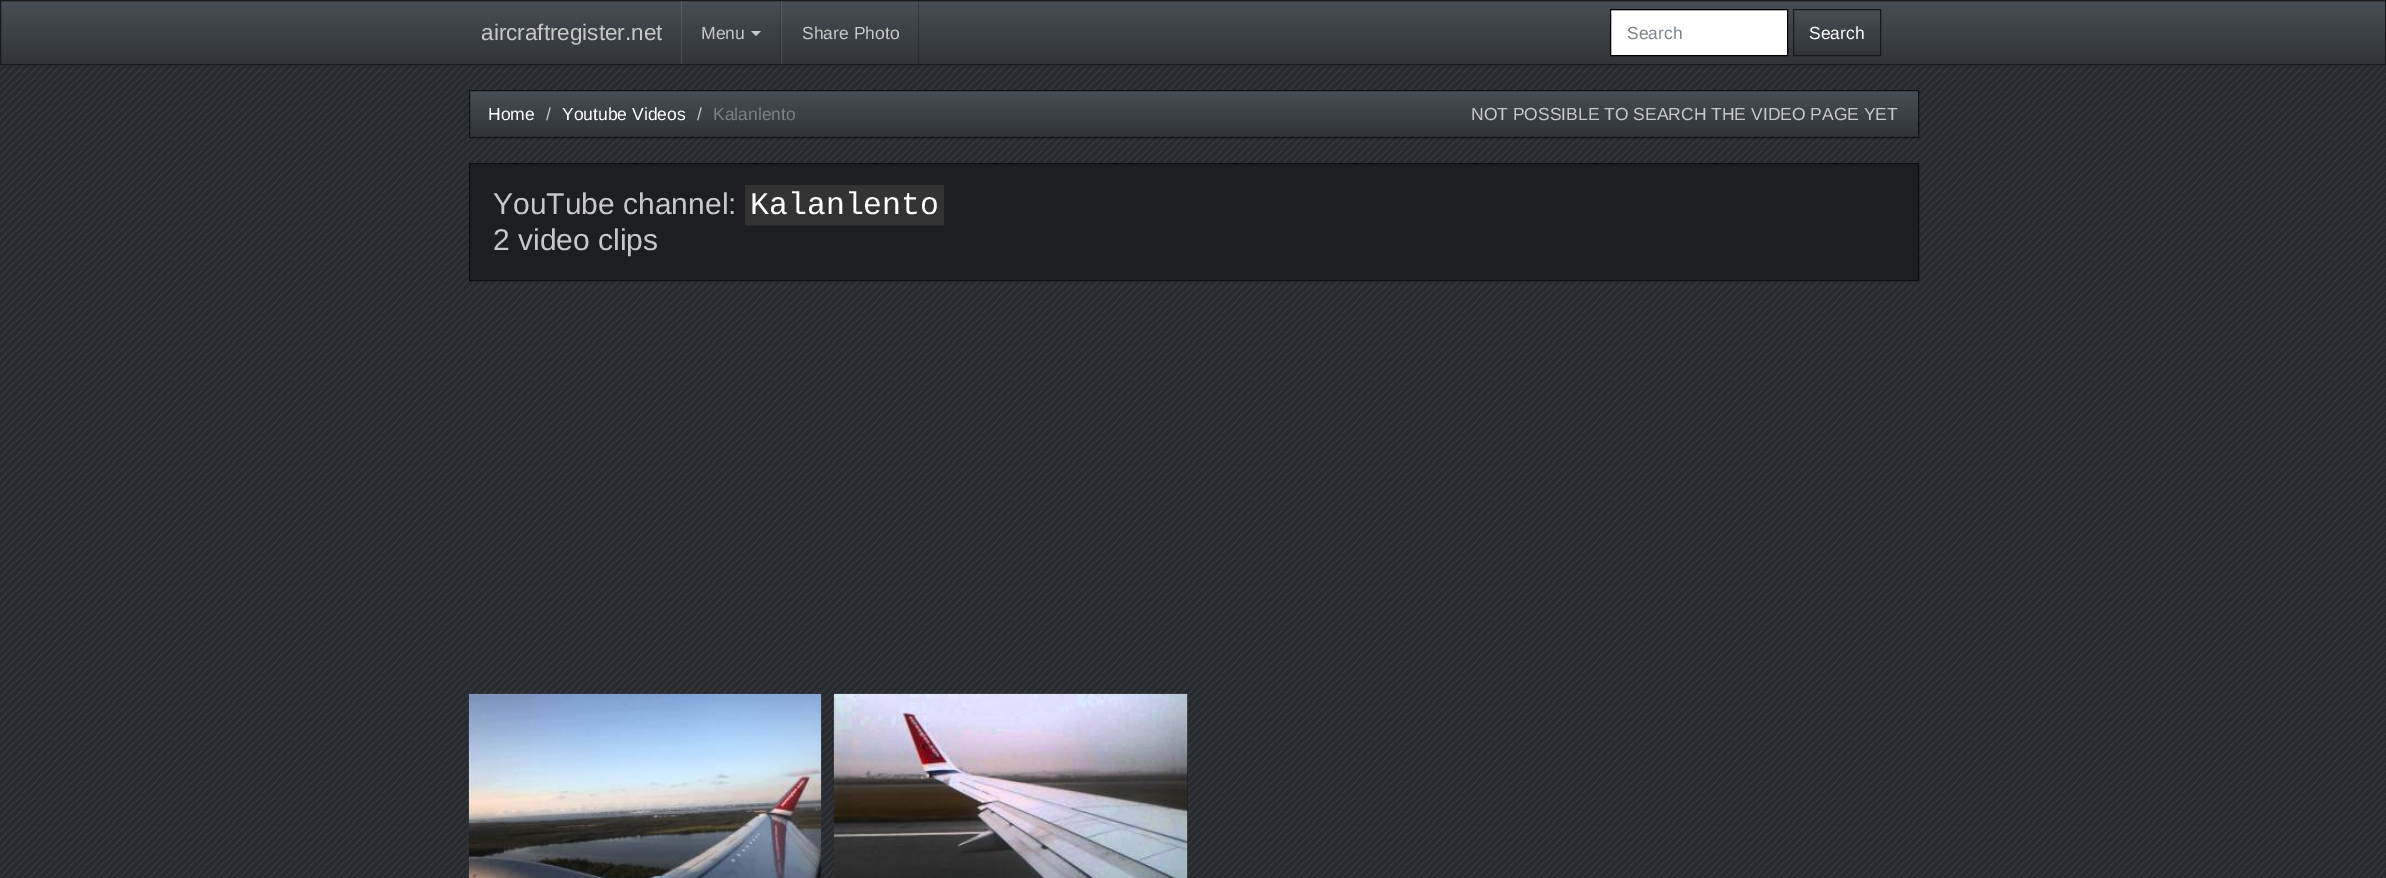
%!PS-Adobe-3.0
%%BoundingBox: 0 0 2386 878
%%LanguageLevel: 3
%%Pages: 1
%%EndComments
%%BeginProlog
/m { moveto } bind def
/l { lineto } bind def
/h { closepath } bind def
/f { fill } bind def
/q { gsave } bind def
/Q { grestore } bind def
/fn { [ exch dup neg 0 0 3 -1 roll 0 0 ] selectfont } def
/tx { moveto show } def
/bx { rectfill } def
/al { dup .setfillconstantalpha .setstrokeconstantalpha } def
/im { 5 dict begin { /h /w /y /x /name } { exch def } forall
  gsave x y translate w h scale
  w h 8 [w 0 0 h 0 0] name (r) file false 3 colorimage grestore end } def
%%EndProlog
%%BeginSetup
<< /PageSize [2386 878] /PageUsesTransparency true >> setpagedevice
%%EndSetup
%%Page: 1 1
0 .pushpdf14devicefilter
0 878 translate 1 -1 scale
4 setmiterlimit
0.153 0.169 0.188 setrgbcolor
0 0 2386 878 bx
(image0.raw) 0 65 2386 813 im
q 1 1 m 2385 1 l 2385 64 l 1 64 l h clip newpath
<< /ShadingType 2 /ColorSpace /DeviceRGB /Coords [1193 1.2 1193 64] /Extend [true true] /Function << /FunctionType 3 /Domain [0 1] /Functions [<< /FunctionType 2 /Domain [0 1] /C0 [0.282 0.306 0.333] /C1 [0.227 0.247 0.267] /N 1 >> << /FunctionType 2 /Domain [0 1] /C0 [0.227 0.247 0.267] /C1 [0.192 0.208 0.224] /N 1 >>] /Bounds [0.6] /Encode [0 1 0 1] >> >> shfill Q
0.09 0.098 0.106 setrgbcolor
0.5 0.5 2385 64 rectstroke
/LiberationSans-Regular 22.5 fn
0.784 setgray
(aircraftregister.net) 481 40 tx
0.2 al
0 setgray
780 1 1 63 bx
0.1 al
1 setgray
681 1 1 63 bx
/LiberationSans-Regular 17.5 fn
1 al
0.784 setgray
(Menu) 701 39 tx
751 31 m 761 31 l 756 36 l h f
0.2 al
0 setgray
918 1 1 63 bx
0.1 al
1 setgray
781 1 1 63 bx
1 al
0.784 setgray
(Share Photo) 802 39 tx
1 setgray
1611 10 176 45 bx
0.925 setgray
1611 10 175 1 bx
0 setgray
1610.5 9.5 177 46 rectstroke
0.478 0.51 0.533 setrgbcolor
(Search) 1627 39 tx
q 1794 10 m 1880 10 l 1880 55 l 1794 55 l h clip newpath
<< /ShadingType 2 /ColorSpace /DeviceRGB /Coords [1837 10 1837 55] /Extend [true true] /Function << /FunctionType 3 /Domain [0 1] /Functions [<< /FunctionType 2 /Domain [0 1] /C0 [0.282 0.306 0.333] /C1 [0.227 0.247 0.267] /N 1 >> << /FunctionType 2 /Domain [0 1] /C0 [0.227 0.247 0.267] /C1 [0.192 0.208 0.224] /N 1 >>] /Bounds [0.6] /Encode [0 1 0 1] >> >> shfill Q
0.09 0.098 0.106 setrgbcolor
1793.5 9.5 87 46 rectstroke
1 setgray
(Search) 1809 39 tx
q 470 91 m 1918 91 l 1918 136 l 470 136 l h clip newpath
<< /ShadingType 2 /ColorSpace /DeviceRGB /Coords [1194 91 1194 136] /Extend [true true] /Function << /FunctionType 3 /Domain [0 1] /Functions [<< /FunctionType 2 /Domain [0 1] /C0 [0.282 0.306 0.333] /C1 [0.227 0.247 0.267] /N 1 >> << /FunctionType 2 /Domain [0 1] /C0 [0.227 0.247 0.267] /C1 [0.192 0.208 0.224] /N 1 >>] /Bounds [0.6] /Encode [0 1 0 1] >> >> shfill Q
0.6 al
0 setgray
469.5 90.5 1449 47 rectstroke
1 al
1 setgray
(Home) 488 120 tx
0.784 setgray
(/) 546 120 tx
1 setgray
(Youtube Videos) 562 120 tx
0.784 setgray
(/) 697 120 tx
0.478 0.51 0.533 setrgbcolor
(Kalanlento) 713 120 tx
0.784 setgray
(NOT POSSIBLE TO SEARCH THE VIDEO PAGE YET) 1471 120 tx
0.11 0.118 0.133 setrgbcolor
470 165 1448 115 bx
0.106 0.114 0.125 setrgbcolor
470 164 1448 1 bx
0.047 0.051 0.055 setrgbcolor
469.5 163.5 1449 117 rectstroke
/LiberationSans-Regular 30 fn
0.784 setgray
(YouTube channel:) 493 214 tx
0.2 setgray
745 185 199 40 bx
/LiberationMono-Regular 31.5 fn
1 setgray
(Kalanlento) 750 214 tx
0.149 setgray
745 225 199 1 bx
/LiberationSans-Regular 30 fn
0.784 setgray
(2 video clips) 493 250 tx
(image1.raw) 468 693 354 185 im
0.11 0.118 0.133 setrgbcolor
1187 694 1 184 bx
(image2.raw) 833 693 355 185 im
.poppdf14devicefilter showpage
%%EOF
